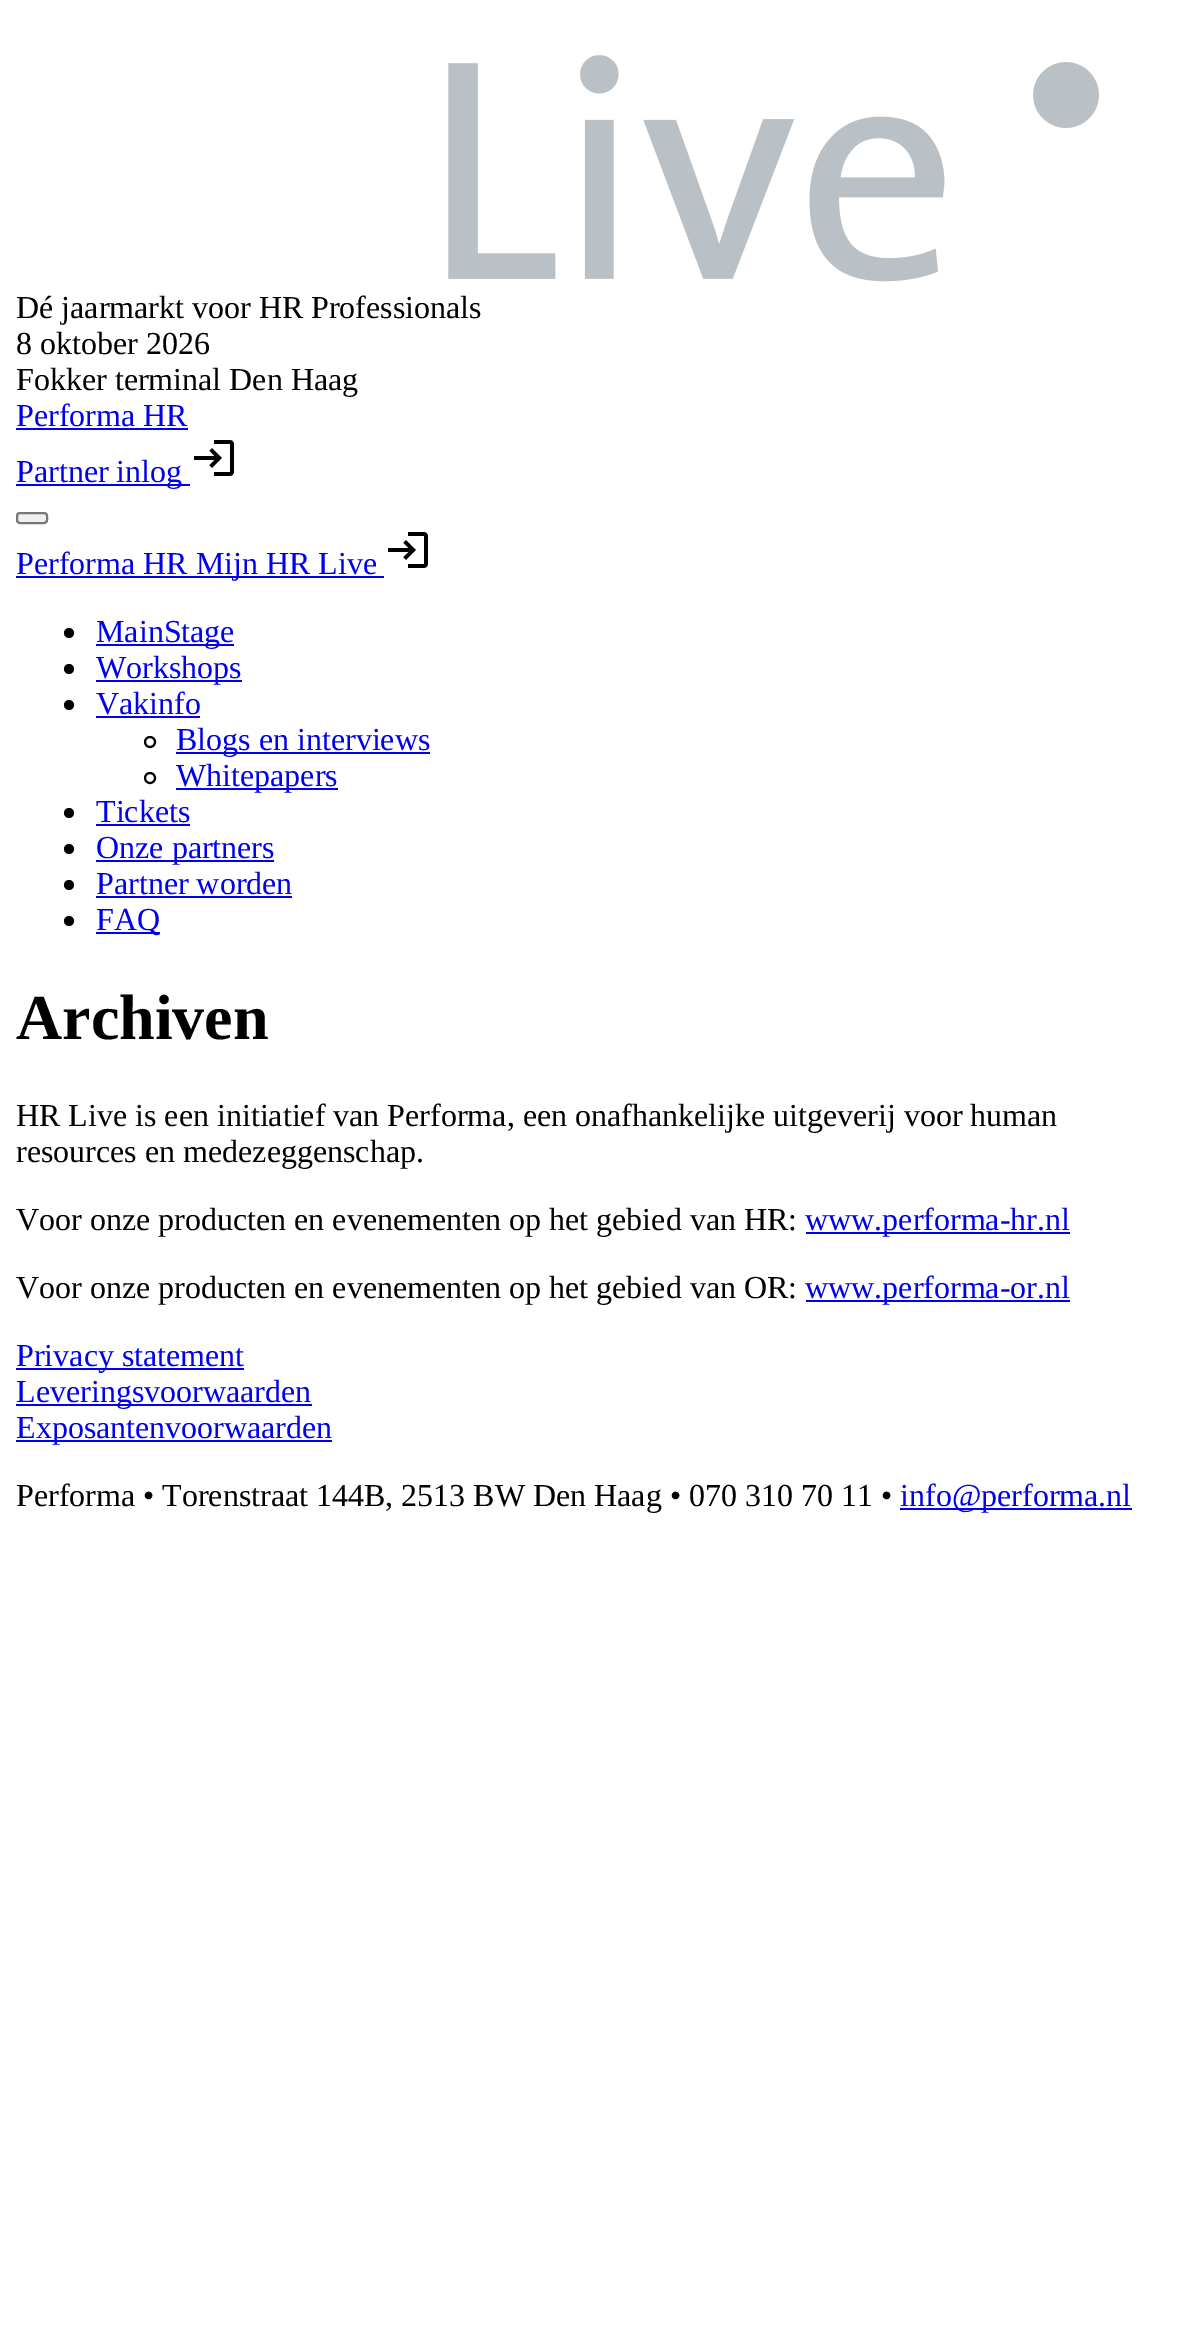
%!PS-Adobe-3.0
%%BoundingBox: 0 0 1178 2342
%%LanguageLevel: 3
%%Pages: 1
%%EndComments
%%BeginProlog
/f { fill } bind def
/S { stroke } bind def
/q { gsave } bind def
/Q { grestore } bind def
/w { setlinewidth } bind def
/fn { [ exch dup neg 0 0 3 -1 roll 0 0 ] selectfont } def
/tx { moveto show } def
/bx { rectfill } def
/ci { newpath 0 360 arc closepath } def
/rr { 5 dict begin { /r /h /w /y /x } { exch def } forall
  x r add y moveto x w add y 2 copy h add r arct x w add y h add x 1 index r arct
  x y h add x y r arct x y 2 copy exch w add exch r arct closepath end } def
/im { 5 dict begin { /h /w /y /x /name } { exch def } forall
  gsave x y translate w h scale
  w h 8 [w 0 0 h 0 0] name (r) file false 3 colorimage grestore end } def
%%EndProlog
%%BeginSetup
<< /PageSize [1178 2342] >> setpagedevice
%%EndSetup
%%Page: 1 1
0 2342 translate 1 -1 scale
4 setmiterlimit
1 setgray
0 0 1178 2342 bx
(image0.raw) 448 55 651 227 im
/LiberationSerif-Regular 32 fn
0 setgray
(Dé jaarmarkt voor HR Professionals) 16 318 tx
(8 oktober 2026) 16 354 tx
(Fokker terminal Den Haag) 16 390 tx
0 0 0.933 setrgbcolor
(Performa HR) 16 426 tx
16 428 172 2 bx
16 484 174 2 bx
(Partner inlog) 16 482 tx
(image1.raw) 194 440 40 36 im
0.937 setgray
17 513 30 10 3 rr q f Q
0.463 setgray
2 w
S
0 0 0.933 setrgbcolor
16 576 368 2 bx
(Performa HR Mijn HR Live) 16 574 tx
(image1.raw) 388 532 40 36 im
0 setgray
69 633 5 ci f
0 0 0.933 setrgbcolor
96 644 138 2 bx
(MainStage) 96 642 tx
0 setgray
69 669 5 ci f
0 0 0.933 setrgbcolor
96 680 146 2 bx
(Workshops) 96 678 tx
0 setgray
69 705 5 ci f
0 0 0.933 setrgbcolor
(Vakinfo) 96 714 tx
96 716 104 2 bx
0 setgray
150 742 5 ci S
0 0 0.933 setrgbcolor
176 752 254 2 bx
(Blogs en interviews) 176 750 tx
0 setgray
150 778 5 ci S
0 0 0.933 setrgbcolor
176 788 162 2 bx
(Whitepapers) 176 786 tx
0 setgray
69 813 5 ci f
0 0 0.933 setrgbcolor
(Tickets) 96 822 tx
96 824 94 2 bx
0 setgray
69 849 5 ci f
0 0 0.933 setrgbcolor
96 860 178 2 bx
(Onze partners) 96 858 tx
0 setgray
69 885 5 ci f
0 0 0.933 setrgbcolor
(Partner worden) 96 894 tx
96 896 196 2 bx
0 setgray
69 921 5 ci f
0 0 0.933 setrgbcolor
96 932 64 2 bx
(FAQ) 96 930 tx
/LiberationSerif-Bold 64 fn
0 setgray
(Archiven) 16 1039 tx
/LiberationSerif-Regular 32 fn
(HR Live is een initiatief van Performa, een onafhankelijke uitgeverij voor human) 16 1126 tx
(resources en medezeggenschap.) 16 1162 tx
(Voor onze producten en evenementen op het gebied van HR:) 16 1230 tx
0 0 0.933 setrgbcolor
806 1232 264 2 bx
(www.performa-hr.nl) 805 1230 tx
0 setgray
(Voor onze producten en evenementen op het gebied van OR:) 16 1298 tx
0 0 0.933 setrgbcolor
806 1300 264 2 bx
(www.performa-or.nl) 805 1298 tx
16 1368 228 2 bx
(Privacy statement) 16 1366 tx
16 1404 296 2 bx
(Leveringsvoorwaarden) 16 1402 tx
16 1440 316 2 bx
(Exposantenvoorwaarden) 16 1438 tx
0 setgray
(Performa • Torenstraat 144B, 2513 BW Den Haag • 070 310 70 11 •) 16 1506 tx
0 0 0.933 setrgbcolor
900 1508 232 2 bx
(info@performa.nl) 900 1506 tx
showpage
%%EOF
